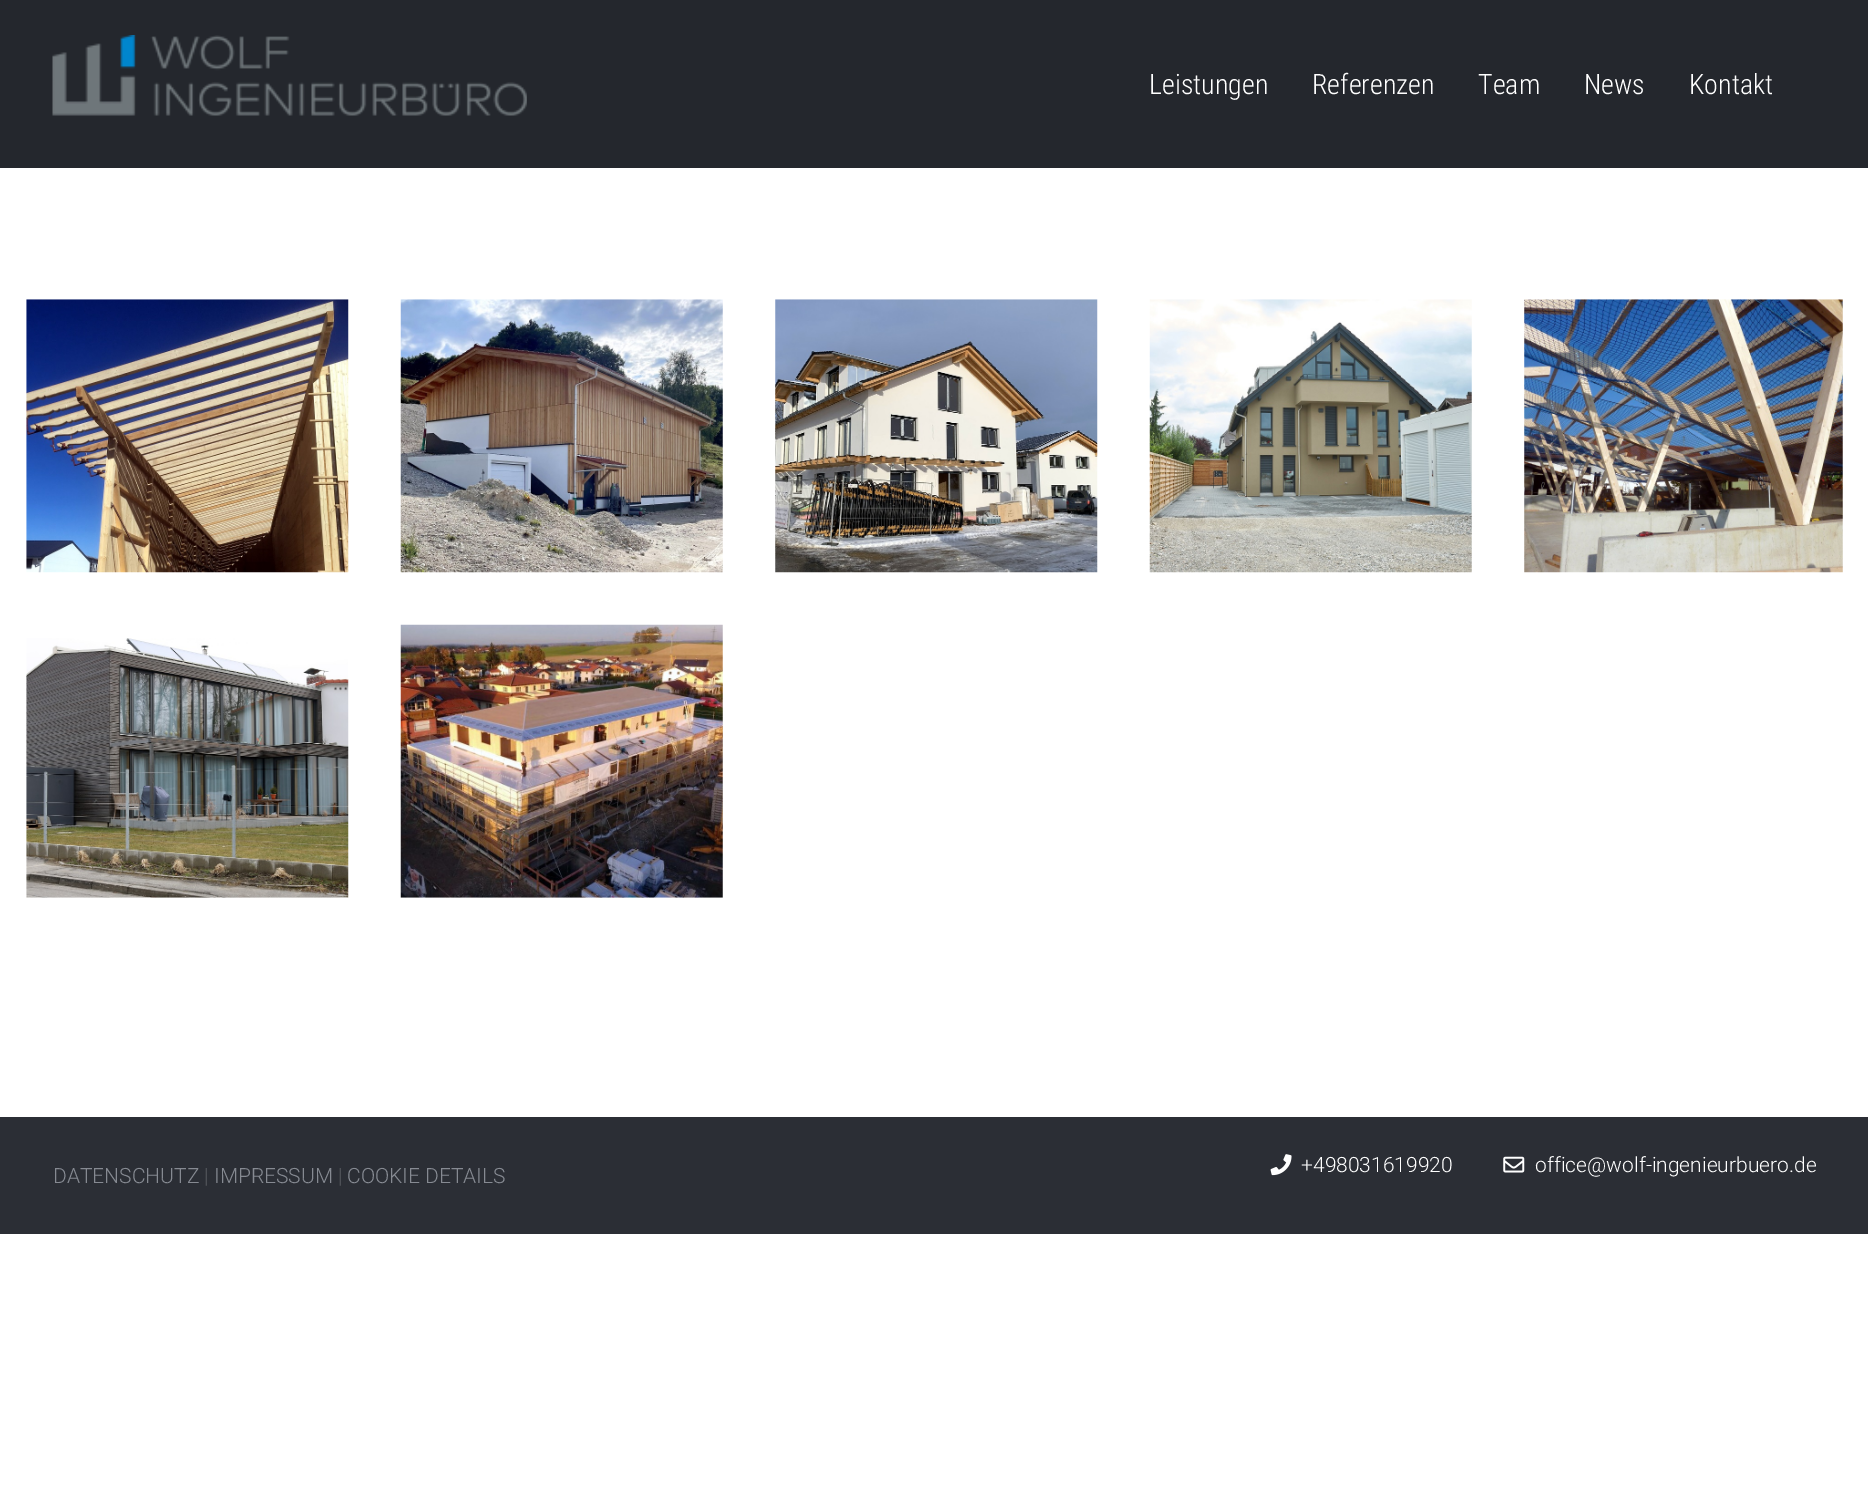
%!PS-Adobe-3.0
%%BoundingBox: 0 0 1868 1500
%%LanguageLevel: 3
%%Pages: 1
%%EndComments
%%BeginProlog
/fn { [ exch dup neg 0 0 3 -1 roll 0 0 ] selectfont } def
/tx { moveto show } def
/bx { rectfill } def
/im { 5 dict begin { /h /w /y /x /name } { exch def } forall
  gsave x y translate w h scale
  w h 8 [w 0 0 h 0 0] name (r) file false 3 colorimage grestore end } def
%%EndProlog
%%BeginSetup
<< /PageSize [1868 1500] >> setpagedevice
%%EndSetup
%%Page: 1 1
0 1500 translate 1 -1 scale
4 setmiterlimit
1 setgray
0 0 1868 1500 bx
0.141 0.153 0.176 setrgbcolor
0 0 1868 168 bx
(image0.raw) 52 35 475 81 im
/RobotoCondensed-Light 28 fn
1 setgray
(Leistungen) 1149 94 tx
(Referenzen) 1312 94 tx
(Team) 1478 94 tx
(News) 1584 94 tx
(Kontakt) 1689 94 tx
(image1.raw) 26 299 323 274 im
(image2.raw) 400 299 323 274 im
(image3.raw) 775 299 323 274 im
(image4.raw) 1149 299 323 274 im
(image5.raw) 1524 299 319 274 im
(image6.raw) 26 638 323 260 im
(image7.raw) 400 624 323 274 im
0.169 0.18 0.208 setrgbcolor
0 1117 1868 117 bx
/Roboto-Light 21 fn
0.525 0.541 0.573 setrgbcolor
(DATENSCHUTZ) 53 1183 tx
0.353 0.365 0.384 setrgbcolor
(|) 204 1183 tx
0.525 0.541 0.573 setrgbcolor
(IMPRESSUM) 214 1183 tx
0.353 0.365 0.384 setrgbcolor
(|) 338 1183 tx
0.525 0.541 0.573 setrgbcolor
(COOKIE DETAILS) 347 1183 tx
(image8.raw) 1270 1154 22 22 im
1 setgray
(+498031619920) 1301 1172 tx
(image9.raw) 1503 1156 22 17 im
(office@wolf-ingenieurbuero.de) 1535 1172 tx
showpage
%%EOF
